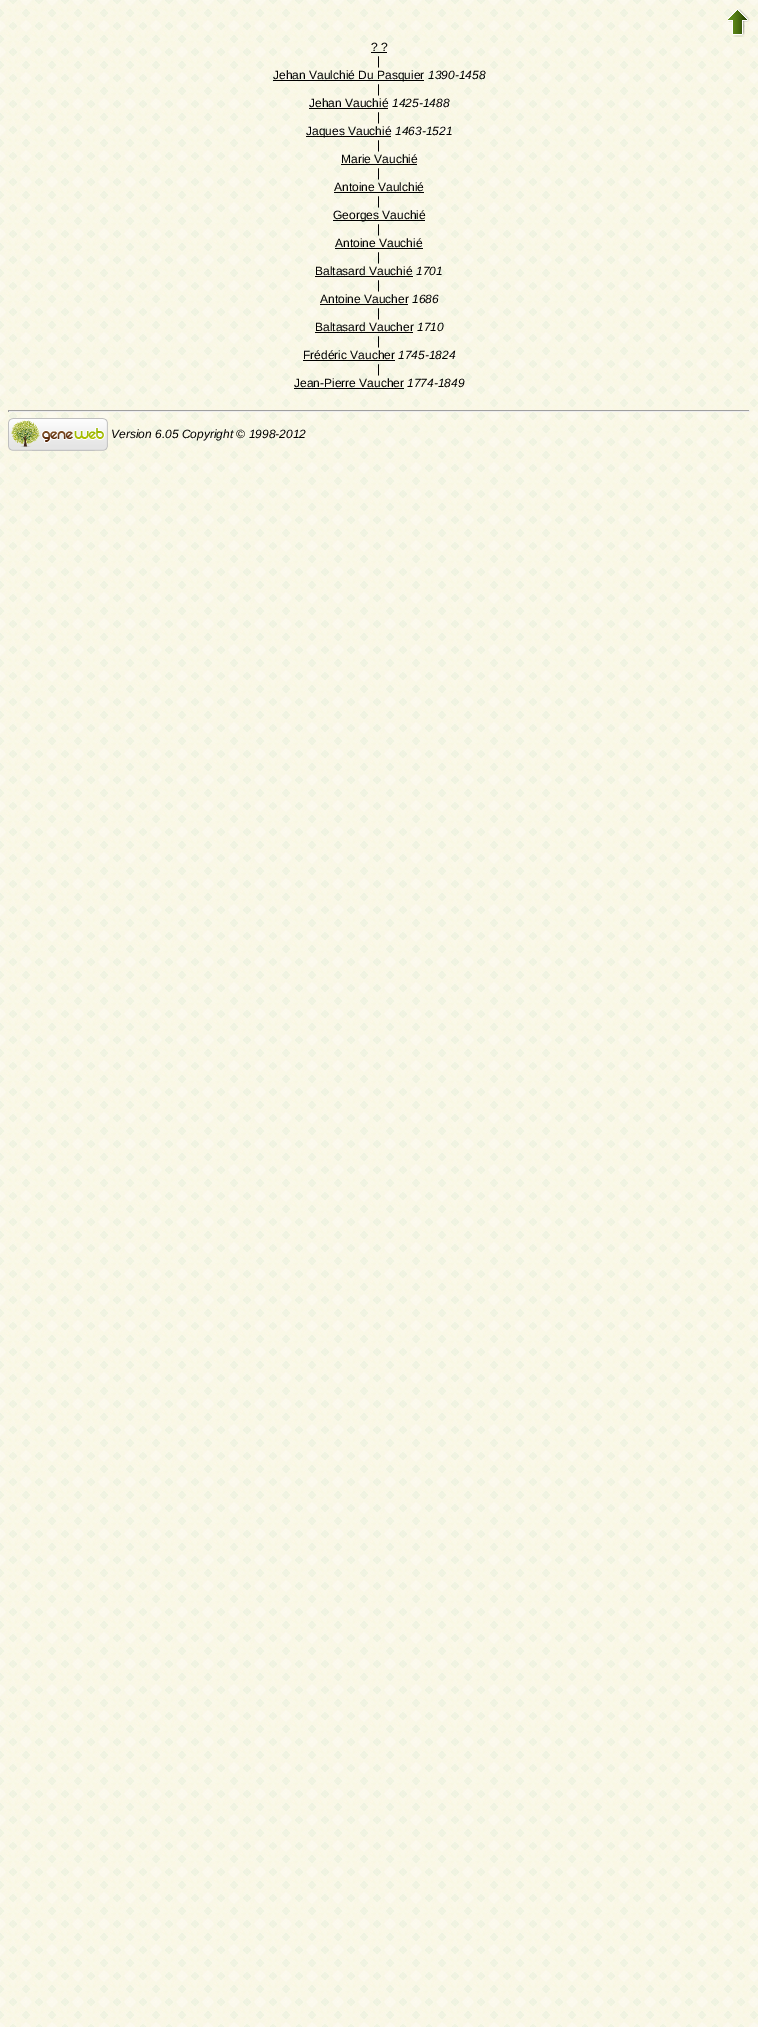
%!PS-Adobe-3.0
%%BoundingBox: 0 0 758 2027
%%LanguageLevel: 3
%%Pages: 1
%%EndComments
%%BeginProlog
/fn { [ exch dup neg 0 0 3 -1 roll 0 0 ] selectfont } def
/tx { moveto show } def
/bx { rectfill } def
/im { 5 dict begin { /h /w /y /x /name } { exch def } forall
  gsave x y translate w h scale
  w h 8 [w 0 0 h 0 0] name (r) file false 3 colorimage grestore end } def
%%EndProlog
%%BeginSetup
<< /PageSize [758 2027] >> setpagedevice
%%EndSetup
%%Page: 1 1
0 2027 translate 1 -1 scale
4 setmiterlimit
1 setgray
0 0 758 2027 bx
(image0.raw) 0 0 758 2027 im
(image1.raw) 728 9 22 28 im
/LiberationSans-Regular 12 fn
0 setgray
(? ?) 371 51 tx
371 52 16 1 bx
(|) 377 65 tx
273 80 151 1 bx
(Jehan Vaulchié Du Pasquier) 273 79 tx
/LiberationSans-Italic 12 fn
(1390-1458) 428 79 tx
/LiberationSans-Regular 12 fn
(|) 377 93 tx
(Jehan Vauchié) 309 107 tx
309 108 79 1 bx
/LiberationSans-Italic 12 fn
(1425-1488) 392 107 tx
/LiberationSans-Regular 12 fn
(|) 377 121 tx
306 136 85 1 bx
(Jaques Vauchié) 306 135 tx
/LiberationSans-Italic 12 fn
(1463-1521) 395 135 tx
/LiberationSans-Regular 12 fn
(|) 377 149 tx
(Marie Vauchié) 341 163 tx
341 164 76 1 bx
(|) 377 177 tx
(Antoine Vaulchié) 334 191 tx
334 192 90 1 bx
(|) 377 205 tx
333 220 92 1 bx
(Georges Vauchié) 333 219 tx
(|) 377 233 tx
(Antoine Vauchié) 335 247 tx
335 248 88 1 bx
(|) 377 261 tx
(Baltasard Vauchié) 315 275 tx
315 276 98 1 bx
/LiberationSans-Italic 12 fn
(1701) 416 275 tx
/LiberationSans-Regular 12 fn
(|) 377 289 tx
(Antoine Vaucher) 320 303 tx
320 304 88 1 bx
/LiberationSans-Italic 12 fn
(1686) 412 303 tx
/LiberationSans-Regular 12 fn
(|) 377 317 tx
(Baltasard Vaucher) 315 331 tx
315 332 98 1 bx
/LiberationSans-Italic 12 fn
(1710) 417 331 tx
/LiberationSans-Regular 12 fn
(|) 377 345 tx
(Frédéric Vaucher) 303 359 tx
303 360 92 1 bx
/LiberationSans-Italic 12 fn
(1745-1824) 398 359 tx
/LiberationSans-Regular 12 fn
(|) 377 373 tx
(Jean-Pierre Vaucher) 294 387 tx
294 388 110 1 bx
/LiberationSans-Italic 12 fn
(1774-1849) 407 387 tx
0.624 setgray
8 410 742 1 bx
0.933 setgray
749 410 1 2 bx
8 411 742 1 bx
0.624 setgray
8 410 1 2 bx
(image2.raw) 8 418 100 33 im
0 setgray
(Version 6.05 Copyright © 1998-2012) 111 438 tx
showpage
%%EOF
